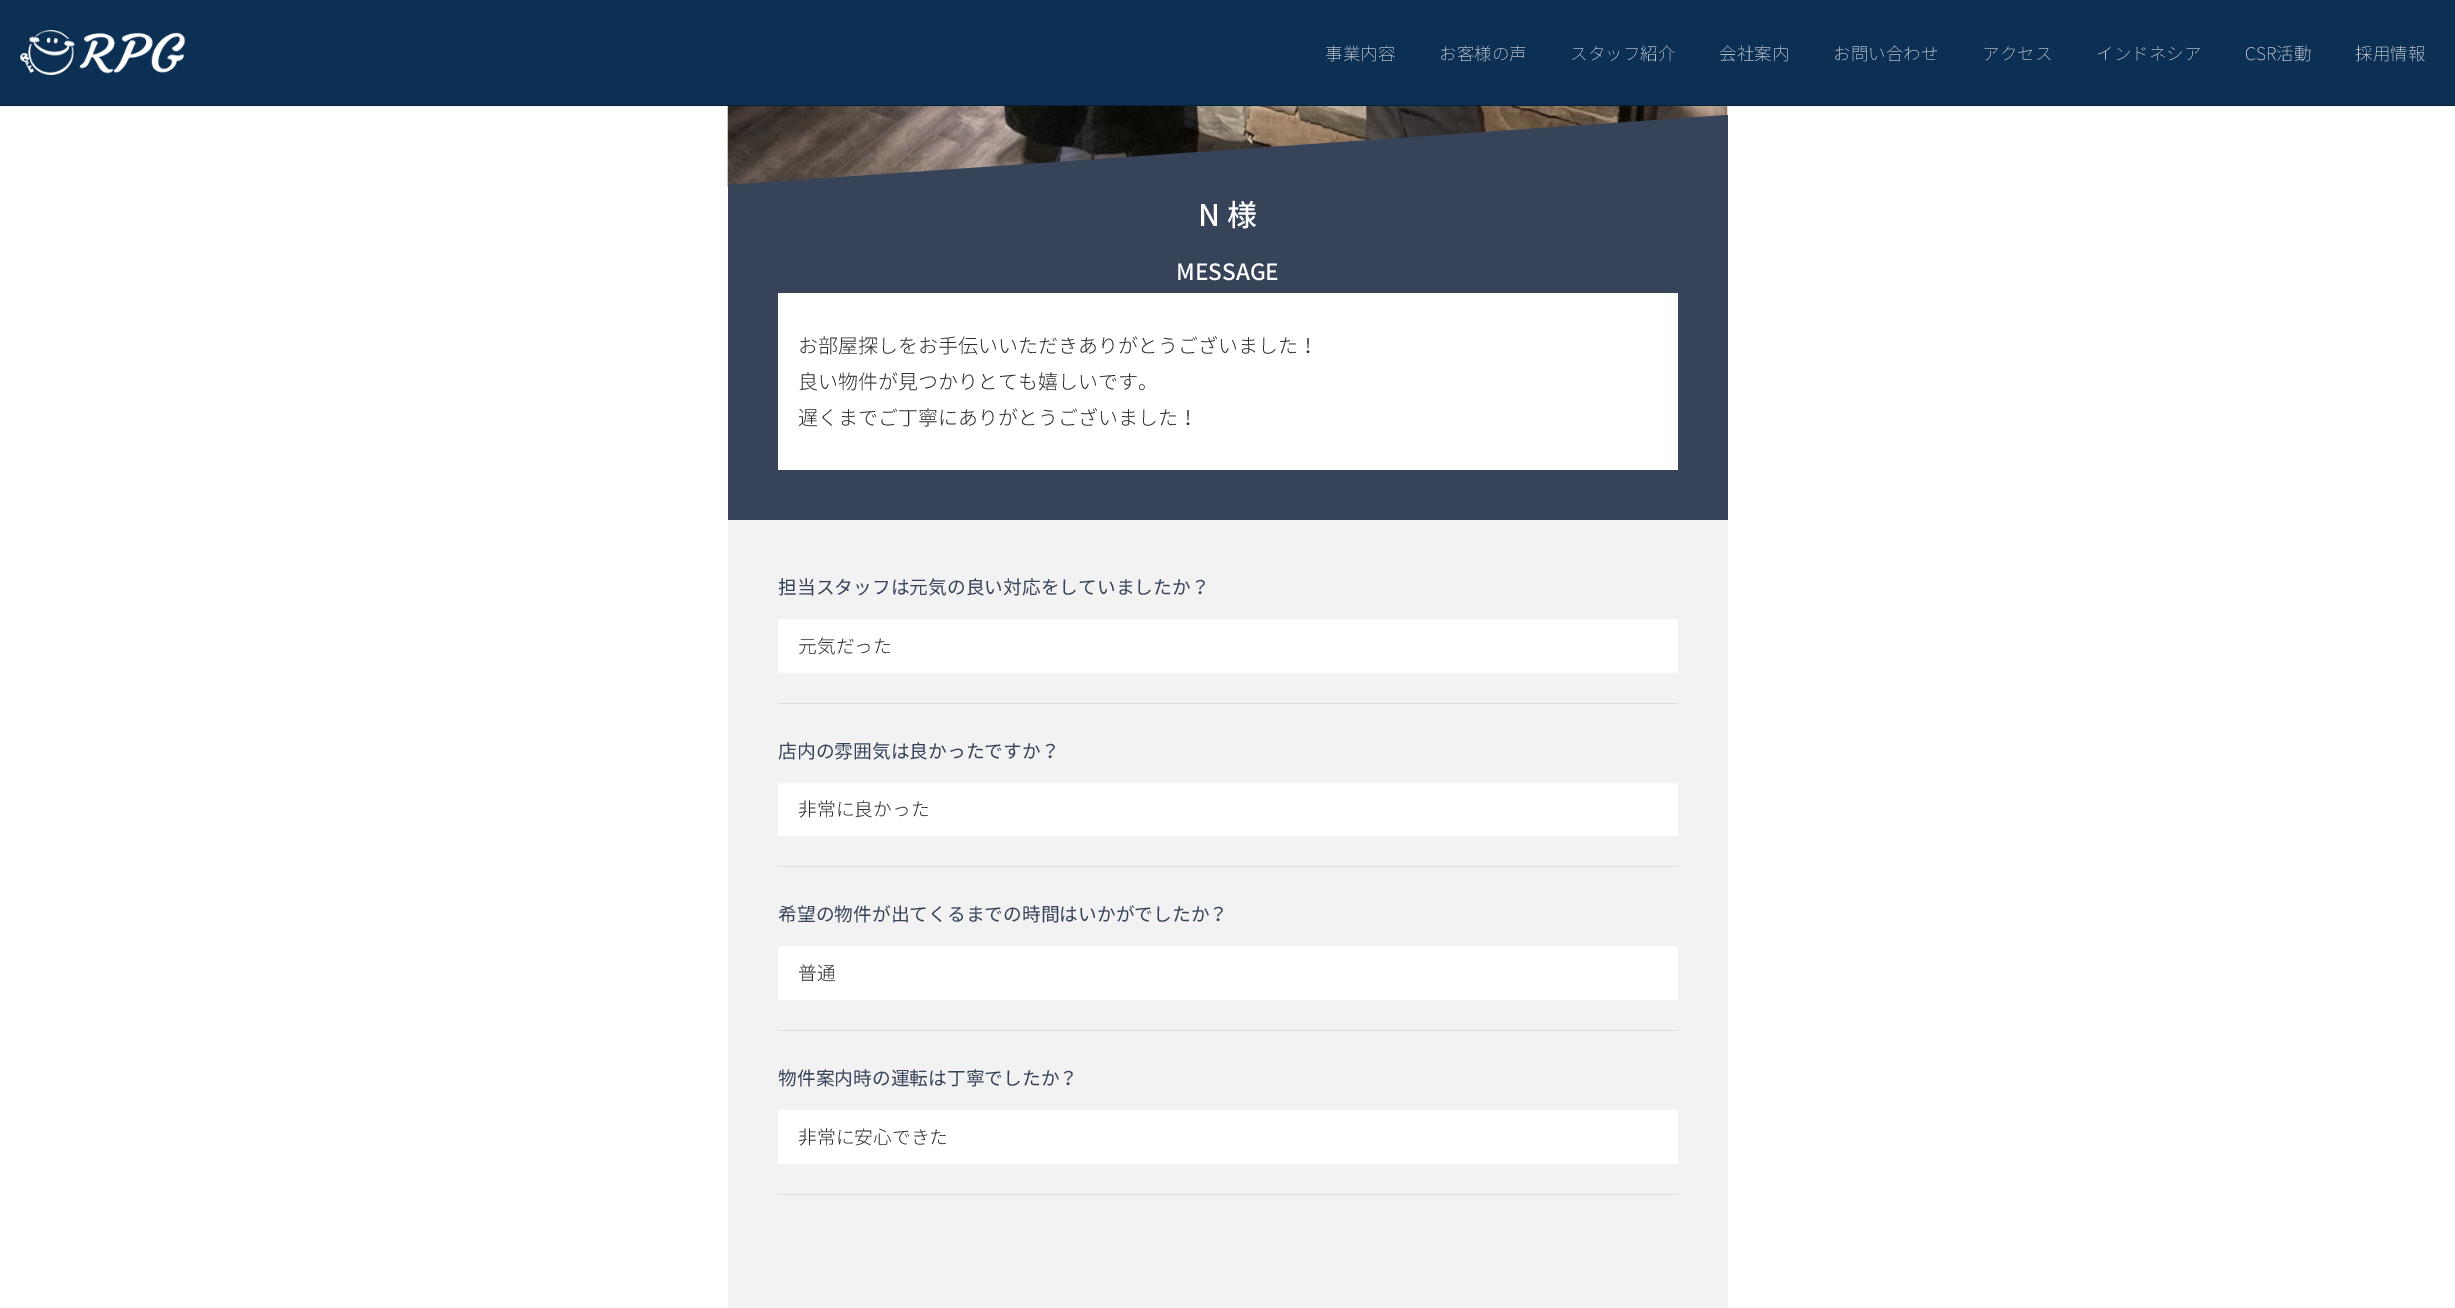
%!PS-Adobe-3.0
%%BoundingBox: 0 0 2455 1308
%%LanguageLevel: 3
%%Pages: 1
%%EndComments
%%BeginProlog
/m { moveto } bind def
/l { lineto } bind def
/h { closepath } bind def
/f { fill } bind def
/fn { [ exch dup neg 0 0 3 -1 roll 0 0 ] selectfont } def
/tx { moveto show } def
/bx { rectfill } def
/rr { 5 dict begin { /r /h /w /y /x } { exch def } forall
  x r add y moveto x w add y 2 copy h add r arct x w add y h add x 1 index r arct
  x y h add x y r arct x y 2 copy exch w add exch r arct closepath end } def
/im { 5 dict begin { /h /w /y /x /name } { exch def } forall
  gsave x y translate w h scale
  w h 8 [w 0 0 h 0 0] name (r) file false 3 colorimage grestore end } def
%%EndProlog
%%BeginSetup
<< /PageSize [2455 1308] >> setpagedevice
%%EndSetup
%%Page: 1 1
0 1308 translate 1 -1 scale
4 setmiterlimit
1 setgray
0 0 2455 1308 bx
0.047 0.184 0.329 setrgbcolor
0 0 2455 105 bx
0.016 0.125 0.212 setrgbcolor
0 105 2455 1 bx
(image0.raw) 20 30 165 45 im
/NotoSansJP-Thin 17.5 fn
0.949 setgray
(事業内容) 1325 60 tx
(お客様の声) 1439 60 tx
(スタッフ紹介) 1570 60 tx
(会社案内) 1719 60 tx
(お問い合わせ) 1833 60 tx
(アクセス) 1982 60 tx
(インドネシア) 2096 60 tx
(CSR活動) 2245 60 tx
(採用情報) 2355 60 tx
(image1.raw) 727 106 1001 81 im
0.212 0.263 0.349 setrgbcolor
1728 115 m 1728 188 l 728 188 l 728 185 l h f
0.949 setgray
728 520 1000 788 bx
0.212 0.263 0.349 setrgbcolor
728 188 1000 332 bx
/NotoSansJP-Medium 30 fn
1 setgray
(N 様) 1198 226 tx
/NotoSansJP-Medium 22.5 fn
(MESSAGE) 1176 280 tx
778 293 900 177 bx
/NotoSansJP-Light 20 fn
0.165 setgray
(お部屋探しをお手伝いいただきありがとうございました！) 798 353 tx
(良い物件が見つかりとても嬉しいです。) 798 389 tx
(遅くまでご丁寧にありがとうございました！) 798 425 tx
0.867 setgray
778 703 900 1 bx
/NotoSansJP-Regular 18.75 fn
0.212 0.263 0.349 setrgbcolor
(担当スタッフは元気の良い対応をしていましたか？) 778 594 tx
1 setgray
778 619 900 54 2.5 rr f
/NotoSansJP-Light 18.75 fn
0.165 setgray
(元気だった) 798 653 tx
0.867 setgray
778 866 900 1 bx
/NotoSansJP-Regular 18.75 fn
0.212 0.263 0.349 setrgbcolor
(店内の雰囲気は良かったですか？) 778 758 tx
1 setgray
778 783 900 53 2.5 rr f
/NotoSansJP-Light 18.75 fn
0.165 setgray
(非常に良かった) 798 816 tx
0.867 setgray
778 1030 900 1 bx
/NotoSansJP-Regular 18.75 fn
0.212 0.263 0.349 setrgbcolor
(希望の物件が出てくるまでの時間はいかがでしたか？) 778 921 tx
1 setgray
778 946 900 54 2.5 rr f
/NotoSansJP-Light 18.75 fn
0.165 setgray
(普通) 798 980 tx
0.867 setgray
778 1194 900 1 bx
/NotoSansJP-Regular 18.75 fn
0.212 0.263 0.349 setrgbcolor
(物件案内時の運転は丁寧でしたか？) 778 1085 tx
1 setgray
778 1110 900 54 2.5 rr f
/NotoSansJP-Light 18.75 fn
0.165 setgray
(非常に安心できた) 798 1144 tx
showpage
%%EOF
